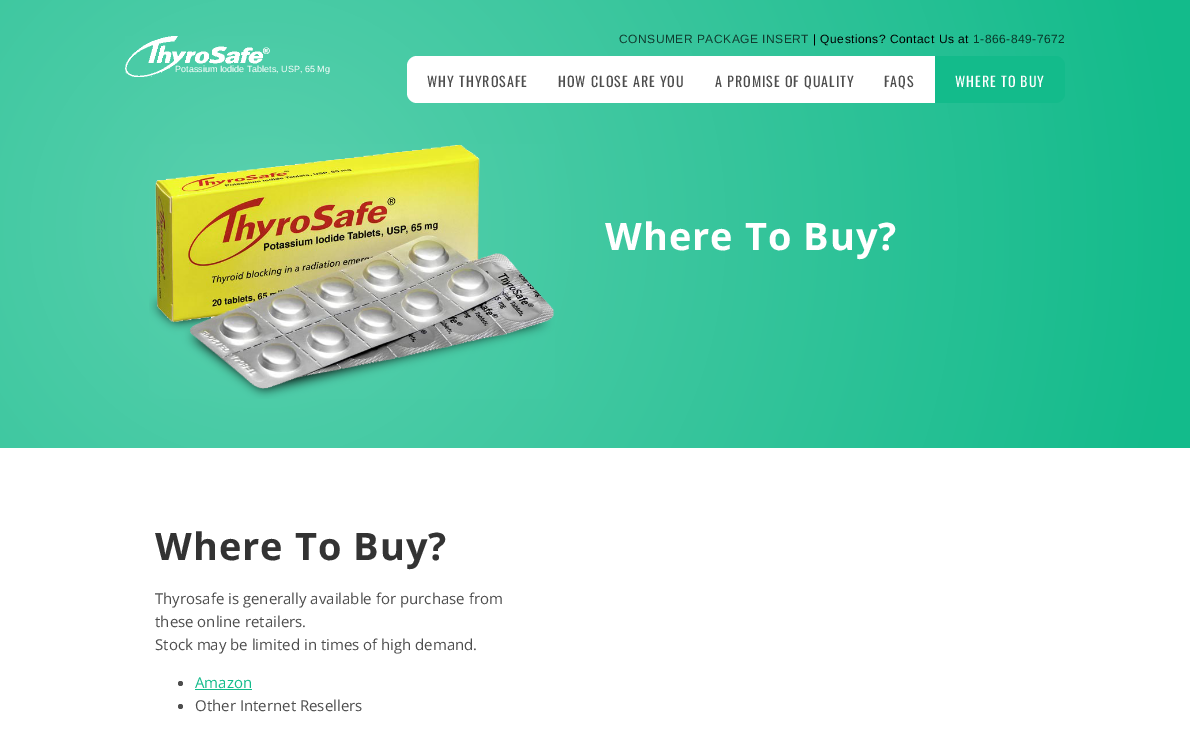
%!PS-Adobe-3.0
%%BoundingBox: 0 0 1190 752
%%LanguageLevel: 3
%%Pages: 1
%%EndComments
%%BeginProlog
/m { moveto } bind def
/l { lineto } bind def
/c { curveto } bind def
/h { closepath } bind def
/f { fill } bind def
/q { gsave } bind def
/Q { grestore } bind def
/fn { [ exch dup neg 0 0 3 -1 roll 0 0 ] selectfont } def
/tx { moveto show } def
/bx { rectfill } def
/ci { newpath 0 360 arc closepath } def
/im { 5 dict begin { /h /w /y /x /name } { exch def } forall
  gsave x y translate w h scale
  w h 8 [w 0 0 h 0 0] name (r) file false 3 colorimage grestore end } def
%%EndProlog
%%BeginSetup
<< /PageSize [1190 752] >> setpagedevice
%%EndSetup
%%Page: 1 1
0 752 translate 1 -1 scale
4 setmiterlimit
1 setgray
0 0 1190 752 bx
q 0 0 m 1190 0 l 1190 448 l 0 448 l h clip newpath 262 228 translate 928 928 scale
<< /ShadingType 3 /ColorSpace /DeviceRGB /Coords [0 0 0 0 0 1] /Extend [true true] /Function << /FunctionType 2 /Domain [0 1] /C0 [0.353 0.816 0.682] /C1 [0.075 0.733 0.545] /N 1 >> >> shfill Q
(image0.raw) 125 36 145 41 im
/LiberationSans-Regular 9 fn
(Potassium Iodide Tablets, USP, 65 Mg) 175 72 tx
/LiberationSans-Regular 12 fn
0.063 0.231 0.184 setrgbcolor
619 43 m 0.5 0 (CONSUMER PACKAGE INSERT) ashow
0 setgray
813 43 m 0.5 0 (| Questions? Contact Us at) ashow
0.035 0.224 0.169 setrgbcolor
973 43 m 0.5 0 (1-866-849-7672) ashow
1 setgray
417 56 m 548 56 l 548 103 l 417 103 l 411.5 103 407 98.5 407 93 c 407 66 l 407 60.5 411.5 56 417 56 c h f
/Oswald-Regular 14 fn
0.302 setgray
427 87 m 1 0 (WHY THYROSAFE) ashow
1 setgray
548 56 387 47 bx
0.302 setgray
558 87 m 1 0 (HOW CLOSE ARE YOU) ashow
715 87 m 1 0 (A PROMISE OF QUALITY) ashow
884 87 m 1 0 (FAQS) ashow
0.075 0.733 0.545 setrgbcolor
935 56 m 1055 56 l 1060.5 56 1065 60.5 1065 66 c 1065 93 l 1065 98.5 1060.5 103 1055 103 c 935 103 l h f
1 setgray
955 87 m 1 0 (WHERE TO BUY) ashow
(image1.raw) 149 144 406 255 im
/OpenSans-Bold 38 fn
605 250 m 1 0 (Where To Buy?) ashow
0.2 setgray
155 560 m 1 0 (Where To Buy?) ashow
/OpenSans-Regular 15 fn
0.302 setgray
(Thyrosafe is generally available for purchase from) 155 604 tx
(these online retailers.) 155 627 tx
(Stock may be limited in times of high demand.) 155 650 tx
180.5 683.5 2.5 ci f
0.075 0.733 0.545 setrgbcolor
(Amazon) 195 688 tx
195 689 57 1 bx
0.302 setgray
180.5 706.5 2.5 ci f
(Other Internet Resellers) 195 711 tx
showpage
%%EOF
